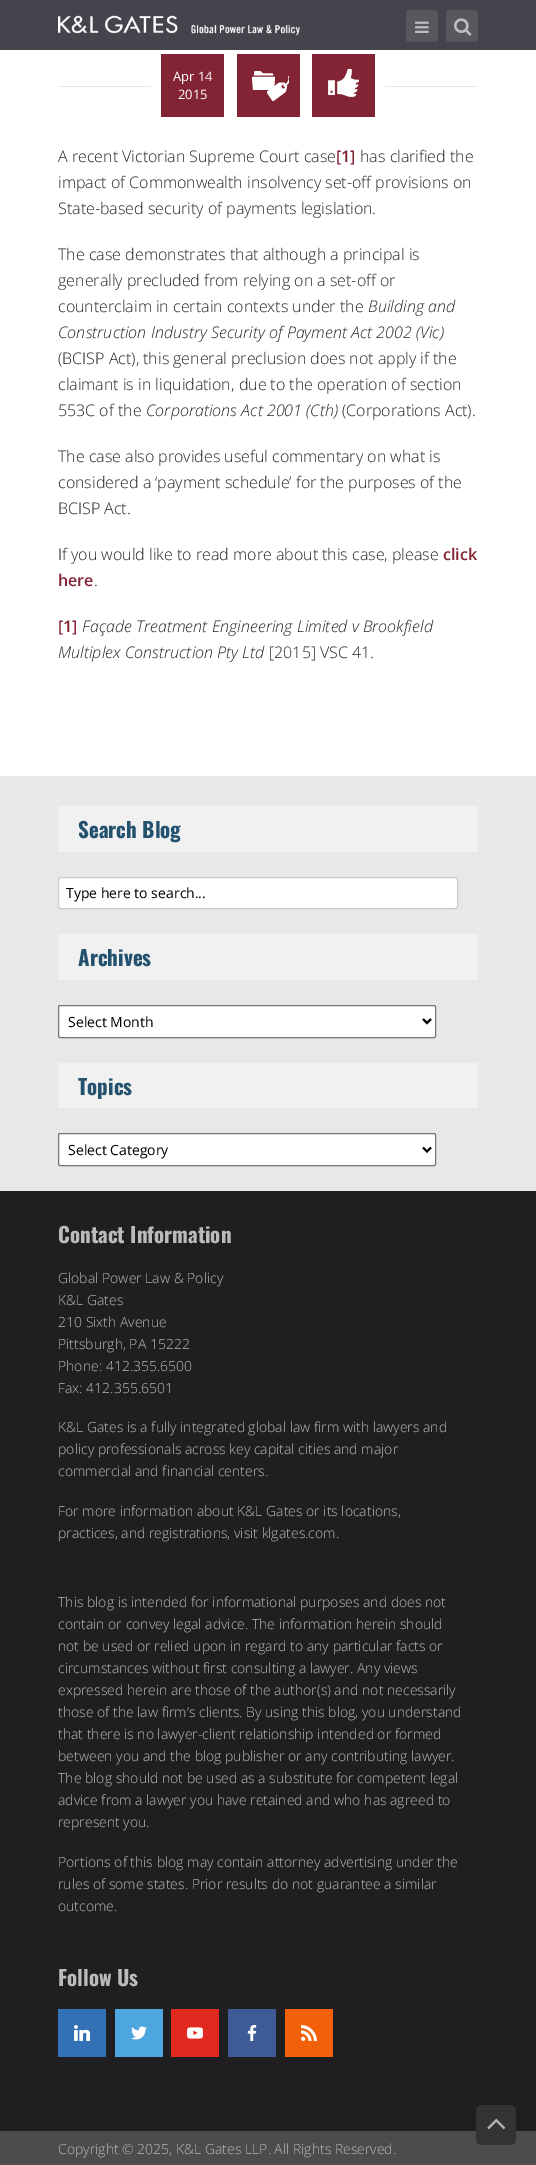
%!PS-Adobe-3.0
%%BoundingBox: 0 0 536 2165
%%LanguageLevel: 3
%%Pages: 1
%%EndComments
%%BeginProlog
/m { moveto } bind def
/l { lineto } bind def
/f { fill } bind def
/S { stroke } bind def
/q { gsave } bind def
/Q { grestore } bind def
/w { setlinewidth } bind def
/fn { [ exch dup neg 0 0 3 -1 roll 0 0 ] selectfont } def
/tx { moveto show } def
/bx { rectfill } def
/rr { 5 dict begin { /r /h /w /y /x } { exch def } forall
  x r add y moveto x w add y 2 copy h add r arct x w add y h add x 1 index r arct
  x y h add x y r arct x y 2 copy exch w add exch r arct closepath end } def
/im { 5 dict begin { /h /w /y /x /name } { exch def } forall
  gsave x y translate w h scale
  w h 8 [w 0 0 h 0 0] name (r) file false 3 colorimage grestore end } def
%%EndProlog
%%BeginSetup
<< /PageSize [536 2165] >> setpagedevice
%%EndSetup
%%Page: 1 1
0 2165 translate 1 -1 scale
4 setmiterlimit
1 setgray
0 0 536 2165 bx
0.267 0.271 0.298 setrgbcolor
0 0 536 50 bx
(image0.raw) 58 15 242 21 im
0.341 0.341 0.369 setrgbcolor
406 10 32 32 3 rr f
(image1.raw) 415 21 14 12 im
446 10 32 32 3 rr f
(image2.raw) 454 18 18 18 im
0.91 setgray
58 86 420 1 bx
1 setgray
151 86 234 1 bx
0.51 0.141 0.2 setrgbcolor
161 54 63 63 bx
/OpenSans-Regular 13 fn
1 setgray
(Apr 14) 173 81 tx
(2015) 178 99 tx
0.51 0.141 0.2 setrgbcolor
237 54 63 63 bx
(image3.raw) 252 71 37 30 im
312 54 63 63 bx
(image4.raw) 328 69 31 28 im
/OpenSans-Light 16 fn
0.157 0.145 0.145 setrgbcolor
(A recent Victorian Supreme Court case) 58 162 tx
/OpenSans-SemiBold 16 fn
0.51 0.141 0.2 setrgbcolor
([1]) 336 162 tx
/OpenSans-Light 16 fn
0.157 0.145 0.145 setrgbcolor
(has clarified the) 360 162 tx
(impact of Commonwealth insolvency set-off provisions on) 58 188 tx
(State-based security of payments legislation.) 58 214 tx
(The case demonstrates that although a principal is) 58 260 tx
(generally precluded from relying on a set-off or) 58 286 tx
(counterclaim in certain contexts under the) 58 312 tx
/OpenSans-LightItalic 16 fn
(Building and) 368 312 tx
(Construction Industry Security of Payment Act 2002 \(Vic\)) 58 338 tx
/OpenSans-Light 16 fn
(\(BCISP Act\), this general preclusion does not apply if the) 58 364 tx
(claimant is in liquidation, due to the operation of section) 58 390 tx
(553C of the) 58 416 tx
/OpenSans-LightItalic 16 fn
(Corporations Act 2001 \(Cth\)) 146 416 tx
/OpenSans-Light 16 fn
(\(Corporations Act\).) 342 416 tx
(The case also provides useful commentary on what is) 58 462 tx
(considered a ‘payment schedule’ for the purposes of the) 58 488 tx
(BCISP Act.) 58 514 tx
(If you would like to read more about this case, please) 58 560 tx
/OpenSans-SemiBold 16 fn
0.51 0.141 0.2 setrgbcolor
(click) 443 560 tx
(here) 58 586 tx
/OpenSans-Light 16 fn
0.157 0.145 0.145 setrgbcolor
(.) 94 586 tx
/OpenSans-SemiBold 16 fn
0.51 0.141 0.2 setrgbcolor
([1]) 58 632 tx
/OpenSans-LightItalic 16 fn
0.157 0.145 0.145 setrgbcolor
(Façade Treatment Engineering Limited v Brookfield) 82 632 tx
(Multiplex Construction Pty Ltd) 58 658 tx
/OpenSans-Light 16 fn
([2015] VSC 41.) 269 658 tx
0.91 setgray
0 776 58 415 bx
58 776 478 415 bx
0.945 setgray
58 806 420 46 bx
/Oswald-Bold 21 fn
0.137 0.322 0.431 setrgbcolor
(Search Blog) 78 838 tx
1 setgray
58.5 877.5 399 31 2.5 rr q f Q
0.8 setgray
S
/OpenSans-Regular 14 fn
0.004 setgray
(Type here to search...) 66 898 tx
0.945 setgray
58 934 420 46 bx
/Oswald-Bold 21 fn
0.137 0.322 0.431 setrgbcolor
(Archives) 78 966 tx
1 setgray
58.5 1005.5 377 32 1.5 rr q f Q
0.463 setgray
S
0 setgray
2 w
423 1019 m 427 1023 l 431 1019 l S
/OpenSans-Regular 14 fn
0.004 setgray
(Select Month) 68 1027 tx
0.945 setgray
58 1063 420 45 bx
/Oswald-Bold 21 fn
0.137 0.322 0.431 setrgbcolor
(Topics) 78 1095 tx
1 setgray
58.5 1133.5 377 32 1.5 rr q f Q
0.463 setgray
1 w
S
0 setgray
2 w
423 1147.5 m 427 1151.5 l 431 1147.5 l S
/OpenSans-Regular 14 fn
0.004 setgray
(Select Category) 68 1155 tx
0.122 0.118 0.125 setrgbcolor
0 1191 536 940 bx
/Oswald-Bold 21 fn
0.733 setgray
(Contact Information) 58 1243 tx
/OpenSans-Light 14 fn
(Global Power Law & Policy) 58 1283 tx
(K&L Gates) 58 1305 tx
(210 Sixth Avenue) 58 1327 tx
(Pittsburgh, PA 15222) 58 1349 tx
(Phone: 412.355.6500) 58 1371 tx
(Fax: 412.355.6501) 58 1393 tx
(K&L Gates is a fully integrated global law firm with lawyers and) 58 1432 tx
(policy professionals across key capital cities and major) 58 1454 tx
(commercial and financial centers.) 58 1476 tx
(For more information about K&L Gates or its locations,) 58 1516 tx
(practices, and registrations, visit klgates.com.) 58 1538 tx
(This blog is intended for informational purposes and does not) 58 1607 tx
(contain or convey legal advice. The information herein should) 58 1629 tx
(not be used or relied upon in regard to any particular facts or) 58 1651 tx
(circumstances without first consulting a lawyer. Any views) 58 1673 tx
(expressed herein are those of the author\(s\) and not necessarily) 58 1695 tx
(those of the law firm’s clients. By using this blog, you understand) 58 1717 tx
(that there is no lawyer-client relationship intended or formed) 58 1739 tx
(between you and the blog publisher or any contributing lawyer.) 58 1761 tx
(The blog should not be used as a substitute for competent legal) 58 1783 tx
(advice from a lawyer you have retained and who has agreed to) 58 1805 tx
(represent you.) 58 1827 tx
(Portions of this blog may contain attorney advertising under the) 58 1867 tx
(rules of some states. Prior results do not guarantee a similar) 58 1889 tx
(outcome.) 58 1911 tx
/Oswald-Bold 21 fn
(Follow Us) 58 1986 tx
0.2 0.443 0.718 setrgbcolor
58 2009 48 48 bx
(image5.raw) 74 2025 16 16 im
0.302 0.655 0.871 setrgbcolor
115 2009 48 48 bx
(image6.raw) 131 2026 16 14 im
0.878 0.165 0.125 setrgbcolor
171 2009 48 48 bx
(image7.raw) 187 2027 16 12 im
0.243 0.357 0.596 setrgbcolor
228 2009 48 48 bx
(image8.raw) 247 2025 10 16 im
0.949 0.38 0.035 setrgbcolor
285 2009 48 48 bx
(image9.raw) 301 2025 16 16 im
0.298 0.294 0.302 setrgbcolor
0 2131 536 34 bx
0.2 setgray
476 2105 40 40 6 rr f
(image10.raw) 487 2118 19 12 im
/OpenSans-Light 14 fn
0.733 setgray
(Copyright © 2025, K&L Gates LLP. All Rights Reserved.) 58 2154 tx
showpage
%%EOF
